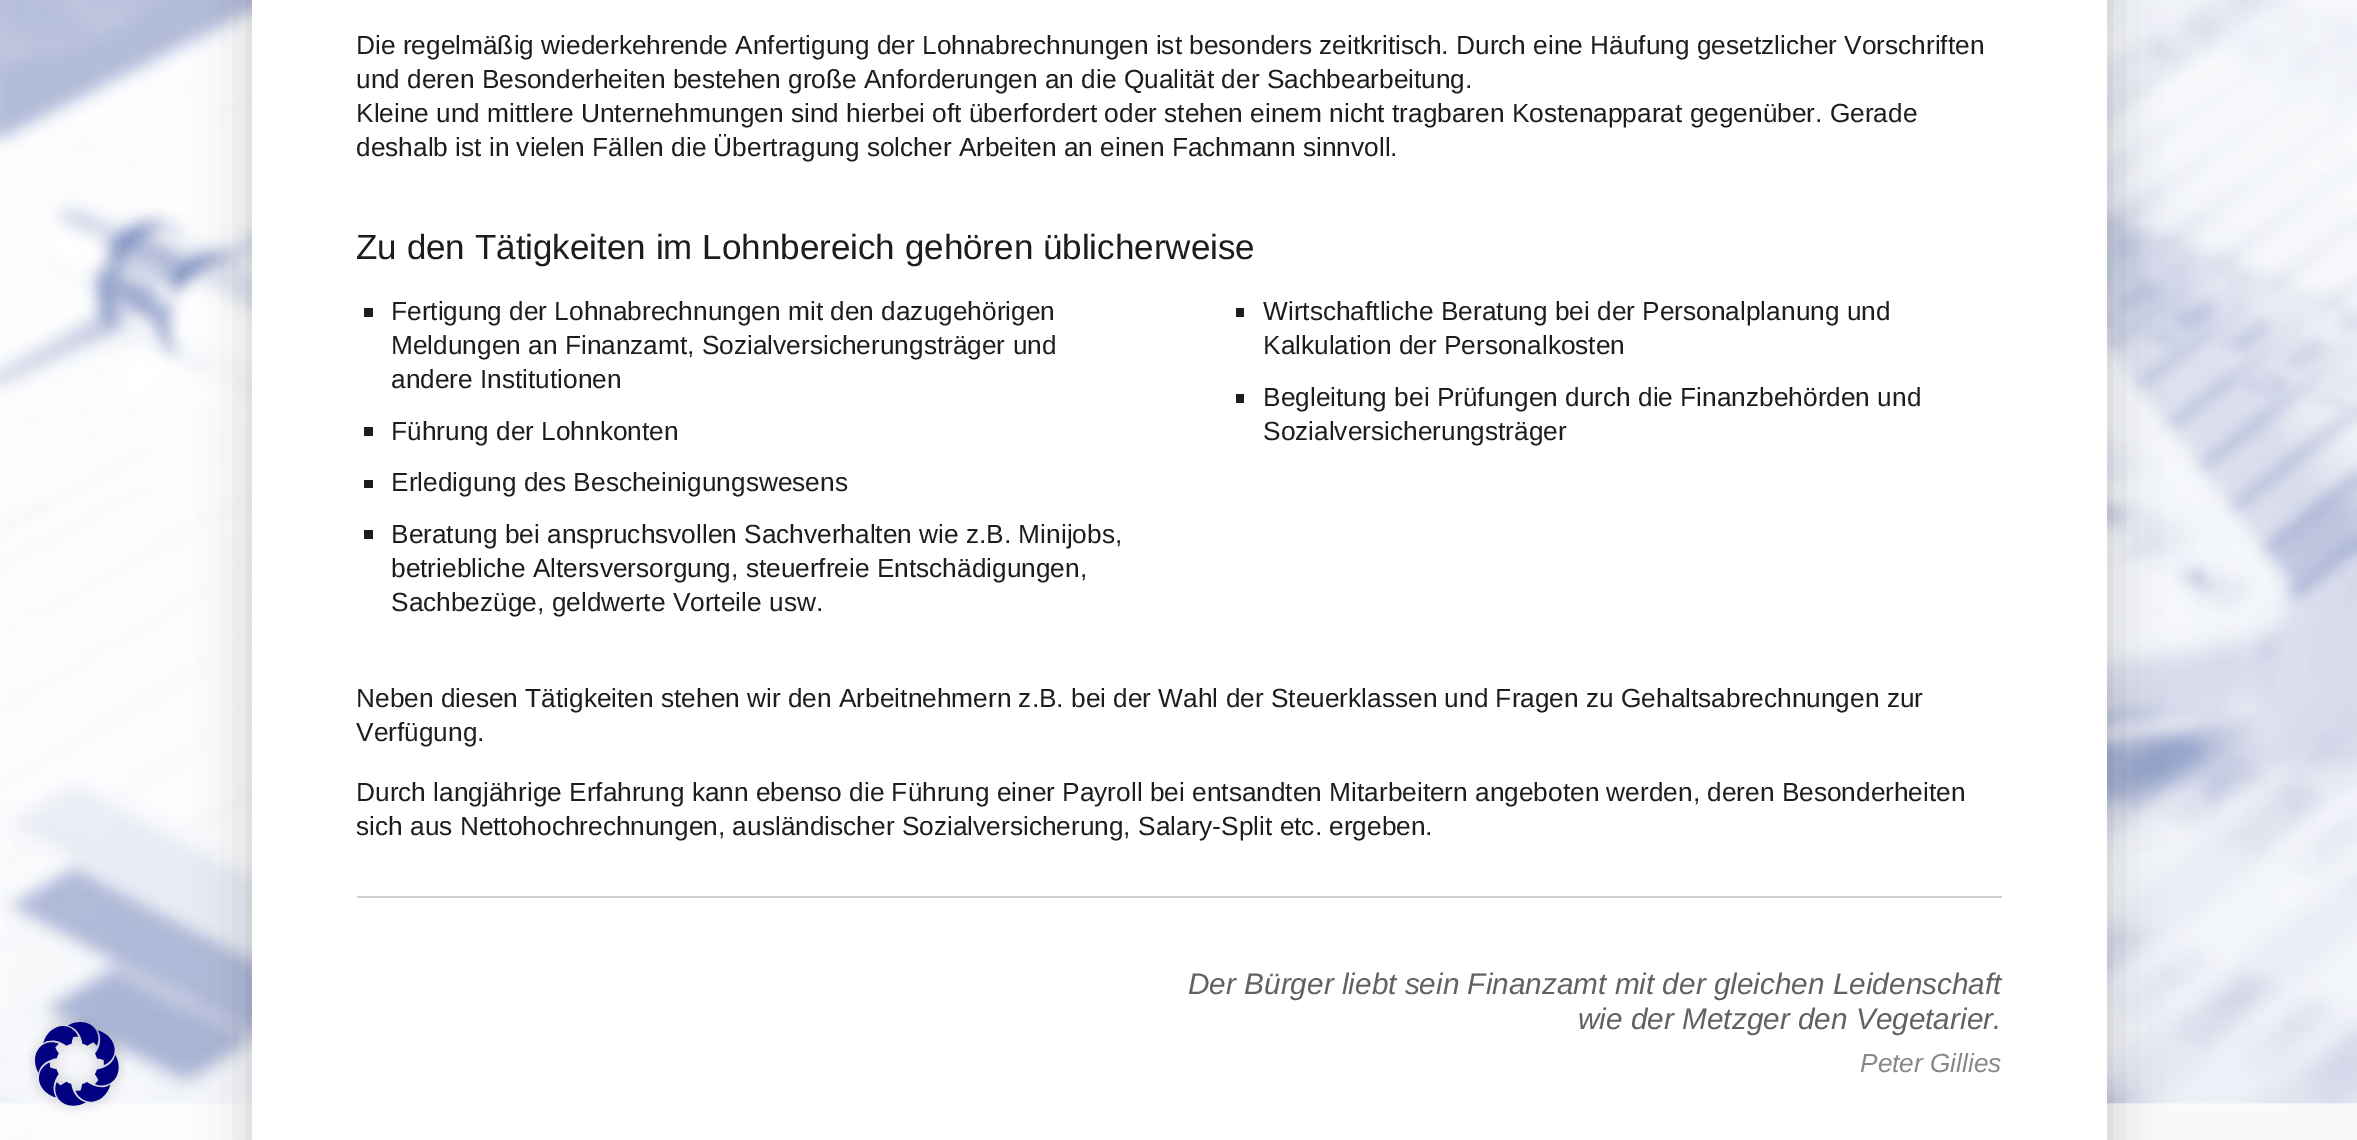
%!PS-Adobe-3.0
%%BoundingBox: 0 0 2357 1140
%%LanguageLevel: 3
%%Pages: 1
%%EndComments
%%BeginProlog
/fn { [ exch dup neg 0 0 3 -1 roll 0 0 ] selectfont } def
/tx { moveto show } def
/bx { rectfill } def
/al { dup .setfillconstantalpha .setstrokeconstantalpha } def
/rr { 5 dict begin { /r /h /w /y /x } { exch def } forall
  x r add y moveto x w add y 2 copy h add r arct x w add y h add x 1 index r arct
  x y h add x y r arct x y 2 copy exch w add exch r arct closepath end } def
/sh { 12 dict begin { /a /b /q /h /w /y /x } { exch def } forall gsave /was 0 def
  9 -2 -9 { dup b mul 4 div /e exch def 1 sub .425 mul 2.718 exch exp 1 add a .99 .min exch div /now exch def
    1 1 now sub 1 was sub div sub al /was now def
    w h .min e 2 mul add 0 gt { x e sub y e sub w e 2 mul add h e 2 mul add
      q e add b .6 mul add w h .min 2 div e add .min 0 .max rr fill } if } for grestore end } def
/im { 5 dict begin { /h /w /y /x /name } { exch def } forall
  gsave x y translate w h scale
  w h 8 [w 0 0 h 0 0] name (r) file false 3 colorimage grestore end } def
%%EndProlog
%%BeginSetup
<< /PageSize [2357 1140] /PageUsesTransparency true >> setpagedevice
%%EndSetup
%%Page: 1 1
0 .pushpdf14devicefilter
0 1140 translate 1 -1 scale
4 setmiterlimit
1 setgray
0 0 2357 1140 bx
(image0.raw) 0 0 2357 1140 im
(image1.raw) 28 1015 98 98 im
0 setgray
252 -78 1855 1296 0 26 0.2 sh
1 setgray
252 0 1855 1140 bx
/LiberationSans-Regular 26.25 fn
0.114 setgray
(Die regelmäßig wiederkehrende Anfertigung der Lohnabrechnungen ist besonders zeitkritisch. Durch eine Häufung gesetzlicher Vorschriften) 356 54 tx
(und deren Besonderheiten bestehen große Anforderungen an die Qualität der Sachbearbeitung.) 356 88 tx
(Kleine und mittlere Unternehmungen sind hierbei oft überfordert oder stehen einem nicht tragbaren Kostenapparat gegenüber. Gerade) 356 122 tx
(deshalb ist in vielen Fällen die Übertragung solcher Arbeiten an einen Fachmann sinnvoll.) 356 156 tx
/LiberationSans-Regular 35 fn
(Zu den Tätigkeiten im Lohnbereich gehören üblicherweise) 356 259 tx
364 308 9 9 bx
/LiberationSans-Regular 26.25 fn
(Fertigung der Lohnabrechnungen mit den dazugehörigen) 391 320 tx
(Meldungen an Finanzamt, Sozialversicherungsträger und) 391 354 tx
(andere Institutionen) 391 388 tx
364 427 9 9 bx
(Führung der Lohnkonten) 391 440 tx
364 480 9 8 bx
(Erledigung des Bescheinigungswesens) 391 491 tx
364 530 9 9 bx
(Beratung bei anspruchsvollen Sachverhalten wie z.B. Minijobs,) 391 543 tx
(betriebliche Altersversorgung, steuerfreie Entschädigungen,) 391 577 tx
(Sachbezüge, geldwerte Vorteile usw.) 391 611 tx
1236 308 8 9 bx
(Wirtschaftliche Beratung bei der Personalplanung und) 1263 320 tx
(Kalkulation der Personalkosten) 1263 354 tx
1236 394 8 9 bx
(Begleitung bei Prüfungen durch die Finanzbehörden und) 1263 406 tx
(Sozialversicherungsträger) 1263 440 tx
(Neben diesen Tätigkeiten stehen wir den Arbeitnehmern z.B. bei der Wahl der Steuerklassen und Fragen zu Gehaltsabrechnungen zur) 356 707 tx
(Verfügung.) 356 741 tx
(Durch langjährige Erfahrung kann ebenso die Führung einer Payroll bei entsandten Mitarbeitern angeboten werden, deren Besonderheiten) 356 801 tx
(sich aus Nettohochrechnungen, ausländischer Sozialversicherung, Salary-Split etc. ergeben.) 356 835 tx
0.82 setgray
357 896 1645 2 bx
/LiberationSans-Italic 29.75 fn
0.38 setgray
(Der Bürger liebt sein Finanzamt mit der gleichen Leidenschaft) 1188 994 tx
(wie der Metzger den Vegetarier.) 1578 1029 tx
/LiberationSans-Italic 26.25 fn
0.533 setgray
(Peter Gillies) 1860 1072 tx
.poppdf14devicefilter showpage
%%EOF
